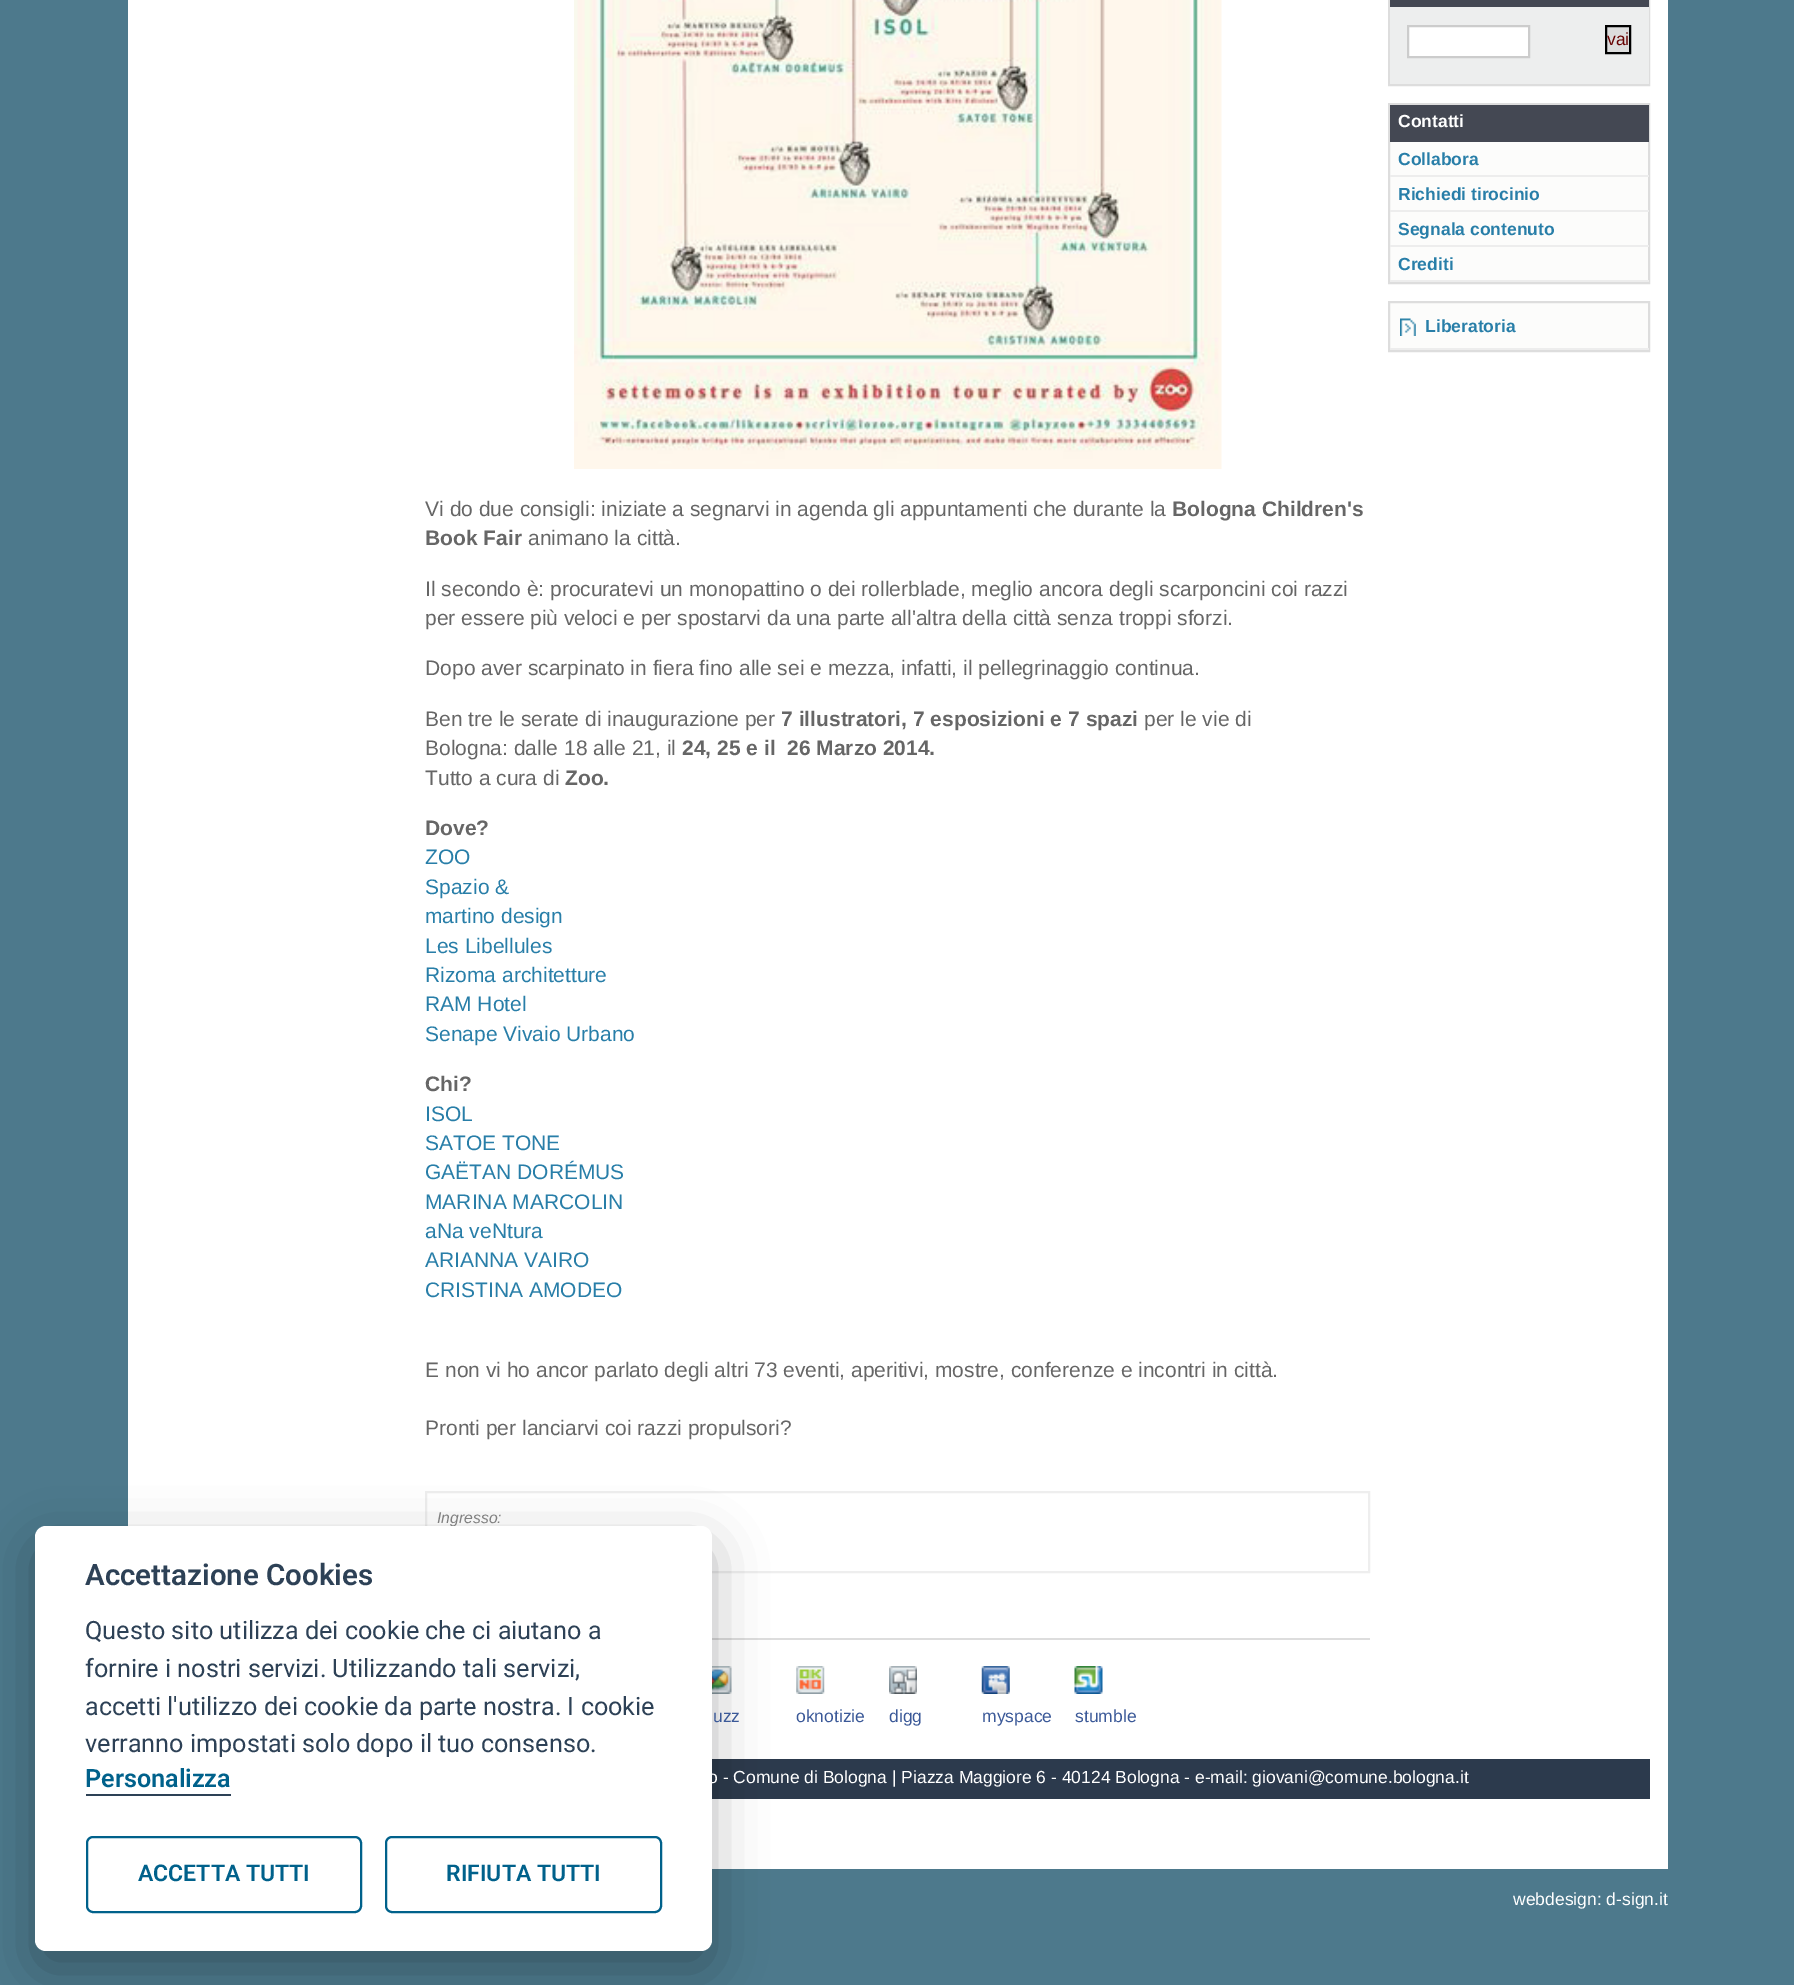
%!PS-Adobe-3.0
%%BoundingBox: 0 0 1794 1985
%%LanguageLevel: 3
%%Pages: 1
%%EndComments
%%BeginProlog
/m { moveto } bind def
/l { lineto } bind def
/h { closepath } bind def
/f { fill } bind def
/S { stroke } bind def
/q { gsave } bind def
/Q { grestore } bind def
/w { setlinewidth } bind def
/fn { [ exch dup neg 0 0 3 -1 roll 0 0 ] selectfont } def
/tx { moveto show } def
/bx { rectfill } def
/al { dup .setfillconstantalpha .setstrokeconstantalpha } def
/rr { 5 dict begin { /r /h /w /y /x } { exch def } forall
  x r add y moveto x w add y 2 copy h add r arct x w add y h add x 1 index r arct
  x y h add x y r arct x y 2 copy exch w add exch r arct closepath end } def
/sh { 12 dict begin { /a /b /q /h /w /y /x } { exch def } forall gsave /was 0 def
  9 -2 -9 { dup b mul 4 div /e exch def 1 sub .425 mul 2.718 exch exp 1 add a .99 .min exch div /now exch def
    1 1 now sub 1 was sub div sub al /was now def
    w h .min e 2 mul add 0 gt { x e sub y e sub w e 2 mul add h e 2 mul add
      q e add b .6 mul add w h .min 2 div e add .min 0 .max rr fill } if } for grestore end } def
/im { 5 dict begin { /h /w /y /x /name } { exch def } forall
  gsave x y translate w h scale
  w h 8 [w 0 0 h 0 0] name (r) file false 3 colorimage grestore end } def
%%EndProlog
%%BeginSetup
<< /PageSize [1794 1985] /PageUsesTransparency true >> setpagedevice
%%EndSetup
%%Page: 1 1
0 .pushpdf14devicefilter
0 1985 translate 1 -1 scale
4 setmiterlimit
0.302 0.475 0.549 setrgbcolor
0 0 1794 1985 bx
1 setgray
128 0 1540 1869 bx
0.933 setgray
2 w
426 1492 943 80 rectstroke
0.867 setgray
712 1638 658 2 bx
(image2.raw) 712 1666 20 28 im
0.173 0.227 0.302 setrgbcolor
712 1759 938 40 bx
0.008 0.008 0.012 setrgbcolor
35 1544 677 425 11 26 0.28 sh
/LiberationSans-Italic 15.75 fn
0.502 setgray
(Ingresso:) 437 1523 tx
1 setgray
35 1526 677 425 11 rr f
/Roboto-SemiBold 29.5 fn
0.176 0.255 0.337 setrgbcolor
(Accettazione Cookies) 85 1585 tx
/Roboto-Regular 25.2 fn
(Questo sito utilizza dei cookie che ci aiutano a) 85 1639 tx
(fornire i nostri servizi. Utilizzando tali servizi,) 85 1677 tx
(accetti l'utilizzo dei cookie da parte nostra. I cookie) 85 1715 tx
(verranno impostati solo dopo il tuo consenso.) 85 1752 tx
86 1794 145 2 bx
/Roboto-SemiBold 25.2 fn
0 0.38 0.545 setrgbcolor
(Personalizza) 85 1787 tx
87 1837 274 75 6 rr S
/Roboto-SemiBold 23 fn
(ACCETTA TUTTI) 138 1881 tx
386 1837 275 75 6 rr S
(RIFIUTA TUTTI) 446 1881 tx
0.867 setgray
1389 -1 260 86 rectstroke
0.267 0.282 0.325 setrgbcolor
1390 0 259 7 bx
0.929 0.933 0.933 setrgbcolor
1390 7 259 77 bx
1 setgray
1408 26 m 1529 26 l 1529 57 l 1408 57 l h q f Q
0.8 setgray
S
0.867 setgray
1606 26 m 1630 26 l 1630 53 l 1606 53 l h q f Q
0 setgray
S
/LiberationSans-Regular 17.5 fn
0.4 0 0 setrgbcolor
(vai) 1607 45 tx
0.988 0.988 0.984 setrgbcolor
1390 142 258 138 bx
0.867 setgray
1389 104 260 179 rectstroke
0.267 0.282 0.325 setrgbcolor
1390 105 259 37 bx
/LiberationSans-Bold 17.5 fn
1 setgray
(Contatti) 1398 127 tx
0.929 setgray
1390 175 259 2 bx
0.157 0.494 0.659 setrgbcolor
(Collabora) 1398 165 tx
0.929 setgray
1390 210 259 2 bx
0.157 0.494 0.659 setrgbcolor
(Richiedi tirocinio) 1398 200 tx
0.929 setgray
1390 245 259 2 bx
0.157 0.494 0.659 setrgbcolor
(Segnala contenuto) 1398 235 tx
0.929 setgray
1390 280 259 2 bx
0.157 0.494 0.659 setrgbcolor
(Crediti) 1398 270 tx
0.988 0.988 0.984 setrgbcolor
1390 303 258 45 bx
0.867 setgray
1389 302 260 49 rectstroke
0.929 setgray
1390 348 259 2 bx
(image0.raw) 1400 318 16 18 im
0.157 0.494 0.659 setrgbcolor
(Liberatoria) 1425 332 tx
(image1.raw) 574 0 648 469 im
/LiberationSans-Regular 21 fn
0.4 setgray
(Vi do due consigli: iniziate a segnarvi in agenda gli appuntamenti che durante la) 425 516 tx
/LiberationSans-Bold 21 fn
(Bologna Children's) 1172 516 tx
(Book Fair) 425 545 tx
/LiberationSans-Regular 21 fn
(animano la città.) 528 545 tx
(Il secondo è: procuratevi un monopattino o dei rollerblade, meglio ancora degli scarponcini coi razzi) 425 596 tx
(per essere più veloci e per spostarvi da una parte all'altra della città senza troppi sforzi.) 425 625 tx
(Dopo aver scarpinato in fiera fino alle sei e mezza, infatti, il pellegrinaggio continua.) 425 675 tx
(Ben tre le serate di inaugurazione per) 425 726 tx
/LiberationSans-Bold 21 fn
(7 illustratori, 7 esposizioni e 7 spazi) 781 726 tx
/LiberationSans-Regular 21 fn
(per le vie di) 1144 726 tx
(Bologna: dalle 18 alle 21, il) 425 755 tx
/LiberationSans-Bold 21 fn
(24, 25 e il  26 Marzo 2014.) 682 755 tx
/LiberationSans-Regular 21 fn
(Tutto a cura di) 425 785 tx
/LiberationSans-Bold 21 fn
(Zoo.) 565 785 tx
(Dove?) 425 835 tx
/LiberationSans-Regular 21 fn
0.157 0.494 0.659 setrgbcolor
(ZOO) 425 864 tx
(Spazio &) 425 894 tx
(martino design) 425 923 tx
(Les Libellules) 425 953 tx
(Rizoma architetture) 425 982 tx
(RAM Hotel) 425 1011 tx
(Senape Vivaio Urbano) 425 1041 tx
/LiberationSans-Bold 21 fn
0.4 setgray
(Chi?) 425 1091 tx
/LiberationSans-Regular 21 fn
0.157 0.494 0.659 setrgbcolor
(ISOL) 425 1121 tx
(SATOE TONE) 425 1150 tx
(GAËTAN DORÉMUS) 425 1179 tx
(MARINA MARCOLIN) 425 1209 tx
(aNa veNtura) 425 1238 tx
(ARIANNA VAIRO) 425 1267 tx
(CRISTINA AMODEO) 425 1297 tx
0.4 setgray
(E non vi ho ancor parlato degli altri 73 eventi, aperitivi, mostre, conferenze e incontri in città.) 425 1377 tx
(Pronti per lanciarvi coi razzi propulsori?) 425 1435 tx
/LiberationSans-Regular 17.5 fn
0.231 0.349 0.596 setrgbcolor
(uzz) 713 1722 tx
(image3.raw) 796 1666 29 28 im
(oknotizie) 796 1722 tx
(image4.raw) 889 1666 28 28 im
(digg) 889 1722 tx
(image5.raw) 981 1666 29 28 im
(myspace) 982 1722 tx
(image6.raw) 1074 1666 29 28 im
(stumble) 1075 1722 tx
1 setgray
(o - Comune di Bologna | Piazza Maggiore 6 - 40124 Bologna - e-mail: giovani@comune.bologna.it) 708 1783 tx
(webdesign: d-sign.it) 1513 1905 tx
.poppdf14devicefilter showpage
%%EOF
